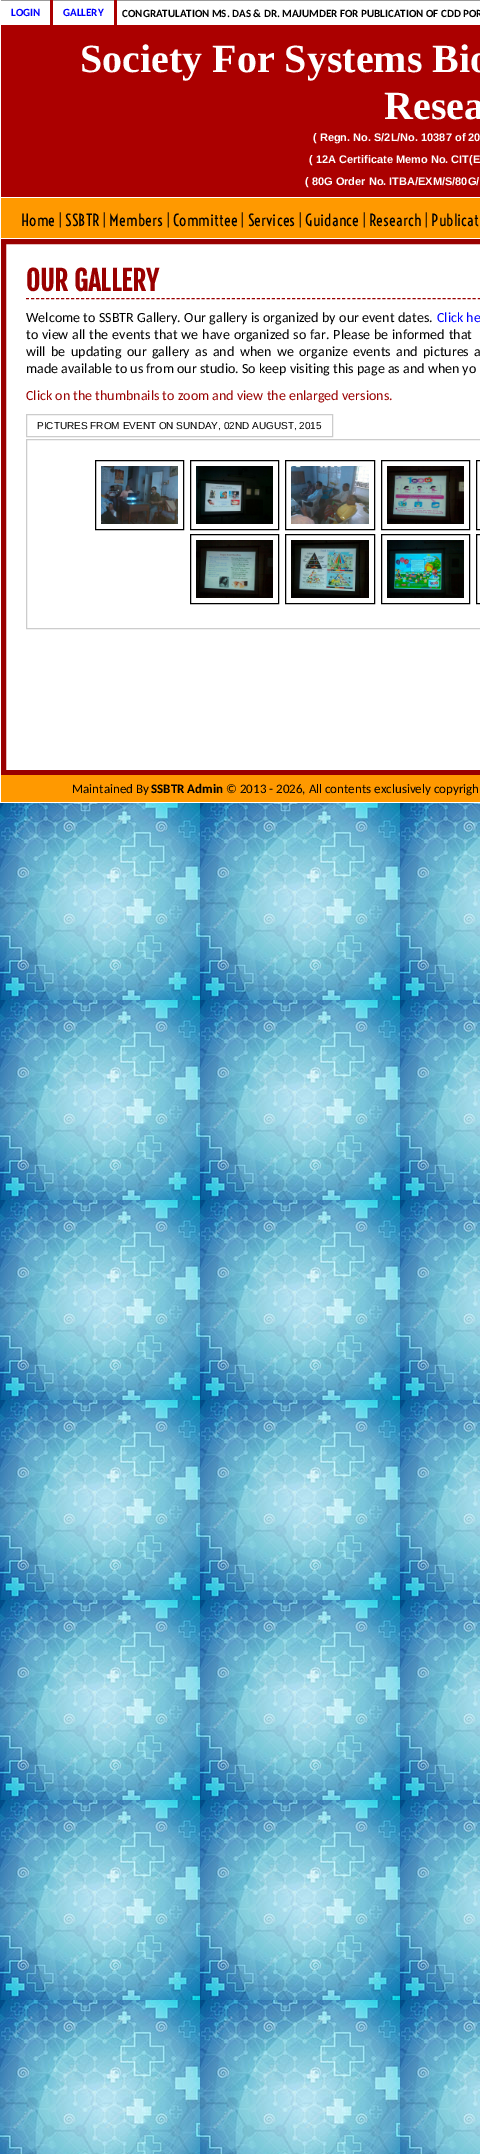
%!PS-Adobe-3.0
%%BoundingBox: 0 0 480 2154
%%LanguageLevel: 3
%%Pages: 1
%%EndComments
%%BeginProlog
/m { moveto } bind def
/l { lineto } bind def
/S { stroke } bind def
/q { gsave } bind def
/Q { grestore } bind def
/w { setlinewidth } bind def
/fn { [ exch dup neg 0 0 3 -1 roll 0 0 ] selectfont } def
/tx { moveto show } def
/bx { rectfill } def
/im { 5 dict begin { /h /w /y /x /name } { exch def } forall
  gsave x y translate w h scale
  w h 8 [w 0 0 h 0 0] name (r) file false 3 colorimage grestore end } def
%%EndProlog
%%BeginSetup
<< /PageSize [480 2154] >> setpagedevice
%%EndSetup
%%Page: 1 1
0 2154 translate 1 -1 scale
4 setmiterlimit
1 setgray
0 0 480 2154 bx
(image0.raw) 0 803 480 1351 im
0.671 0 0 setrgbcolor
1 0 479 197 bx
1 setgray
1 1 49 24 bx
0.608 setgray
1 0 49 1 bx
/Carlito-Bold 11 fn
0 0 1 setrgbcolor
(LOGIN) 11 16 tx
1 setgray
53 1 61 24 bx
0.608 setgray
53 0 61 1 bx
0 0 1 setrgbcolor
(GALLERY) 63 16 tx
1 setgray
117 1 363 24 bx
0.608 setgray
117 0 363 1 bx
q
122 7 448 12 rectclip
0 setgray
(CONGRATULATION MS. DAS & DR. MAJUMDER FOR PUBLICATION OF CDD POR) 122 17 tx
Q
/LiberationSerif-Bold 40 fn
1 setgray
(Society For Systems Bio) 80 72 tx
(Resea) 384 119 tx
/LiberationSans-Bold 11 fn
(\( Regn. No. S/2L/No. 10387 of 20) 313 141 tx
(\( 12A Certificate Memo No. CIT\(E) 309 163 tx
(\( 80G Order No. ITBA/EXM/S/80G/) 305 185 tx
1 0.6 0 setrgbcolor
1 198 479 40 bx
/Voltaire-Regular 16 fn
0 setgray
(Home | SSBTR | Members | Committee | Services | Guidance | Research | Publicat) 21 226 tx
0.6 0 0 setrgbcolor
5 w
3.5 241.5 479 531 rectstroke
1 w
[3 2.02] 0 setdash
26 298.5 m 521 298.5 l S
/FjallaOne-Bold 27 fn
(OUR GALLERY) 26 291 tx
/Carlito-Regular 14 fn
0 setgray
26 322 m 0.25 0 32 (Welcome to SSBTR Gallery. Our gallery is organized by our event dates.) widthshow
0 0 1 setrgbcolor
(Click he) 437 322 tx
0 setgray
26 339 m 0.75 0 32 (to view all the events that we have organized so far. Please be informed that) widthshow
26 356 m 2.25 0 32 (will be updating our gallery as and when we organize events and pictures a) widthshow
(made available to us from our studio. So keep visiting this page as and when yo) 26 373 tx
0.6 0 0 setrgbcolor
(Click on the thumbnails to zoom and view the enlarged versions.) 26 400 tx
0.8 setgray
[] 0 setdash
26.5 414.5 306 22 rectstroke
/LiberationSans-Regular 10 fn
0 setgray
(PICTURES FROM EVENT ON SUNDAY, 02ND AUGUST, 2015) 37 429 tx
0.8 setgray
26.5 439.5 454 189 rectstroke
0 setgray
95.5 460.5 88 69 rectstroke
190.5 460.5 88 69 rectstroke
285.5 460.5 89 69 rectstroke
381.5 460.5 88 69 rectstroke
476.5 460.5 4 69 rectstroke
(image1.raw) 101 466 77 58 im
(image2.raw) 196 466 77 58 im
(image3.raw) 291 466 78 58 im
(image4.raw) 387 466 77 58 im
190.5 534.5 88 69 rectstroke
285.5 534.5 89 69 rectstroke
381.5 534.5 88 69 rectstroke
476.5 534.5 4 69 rectstroke
(image5.raw) 196 540 77 58 im
(image6.raw) 291 540 78 58 im
(image7.raw) 387 540 77 58 im
1 0.6 0 setrgbcolor
1 775 479 27 bx
/Carlito-Regular 13 fn
0 setgray
(Maintained By) 72 793 tx
/Carlito-Bold 13 fn
(SSBTR Admin) 151 793 tx
/Carlito-Regular 13 fn
(© 2013 - 2026, All contents exclusively copyrigh) 226 793 tx
showpage
%%EOF
